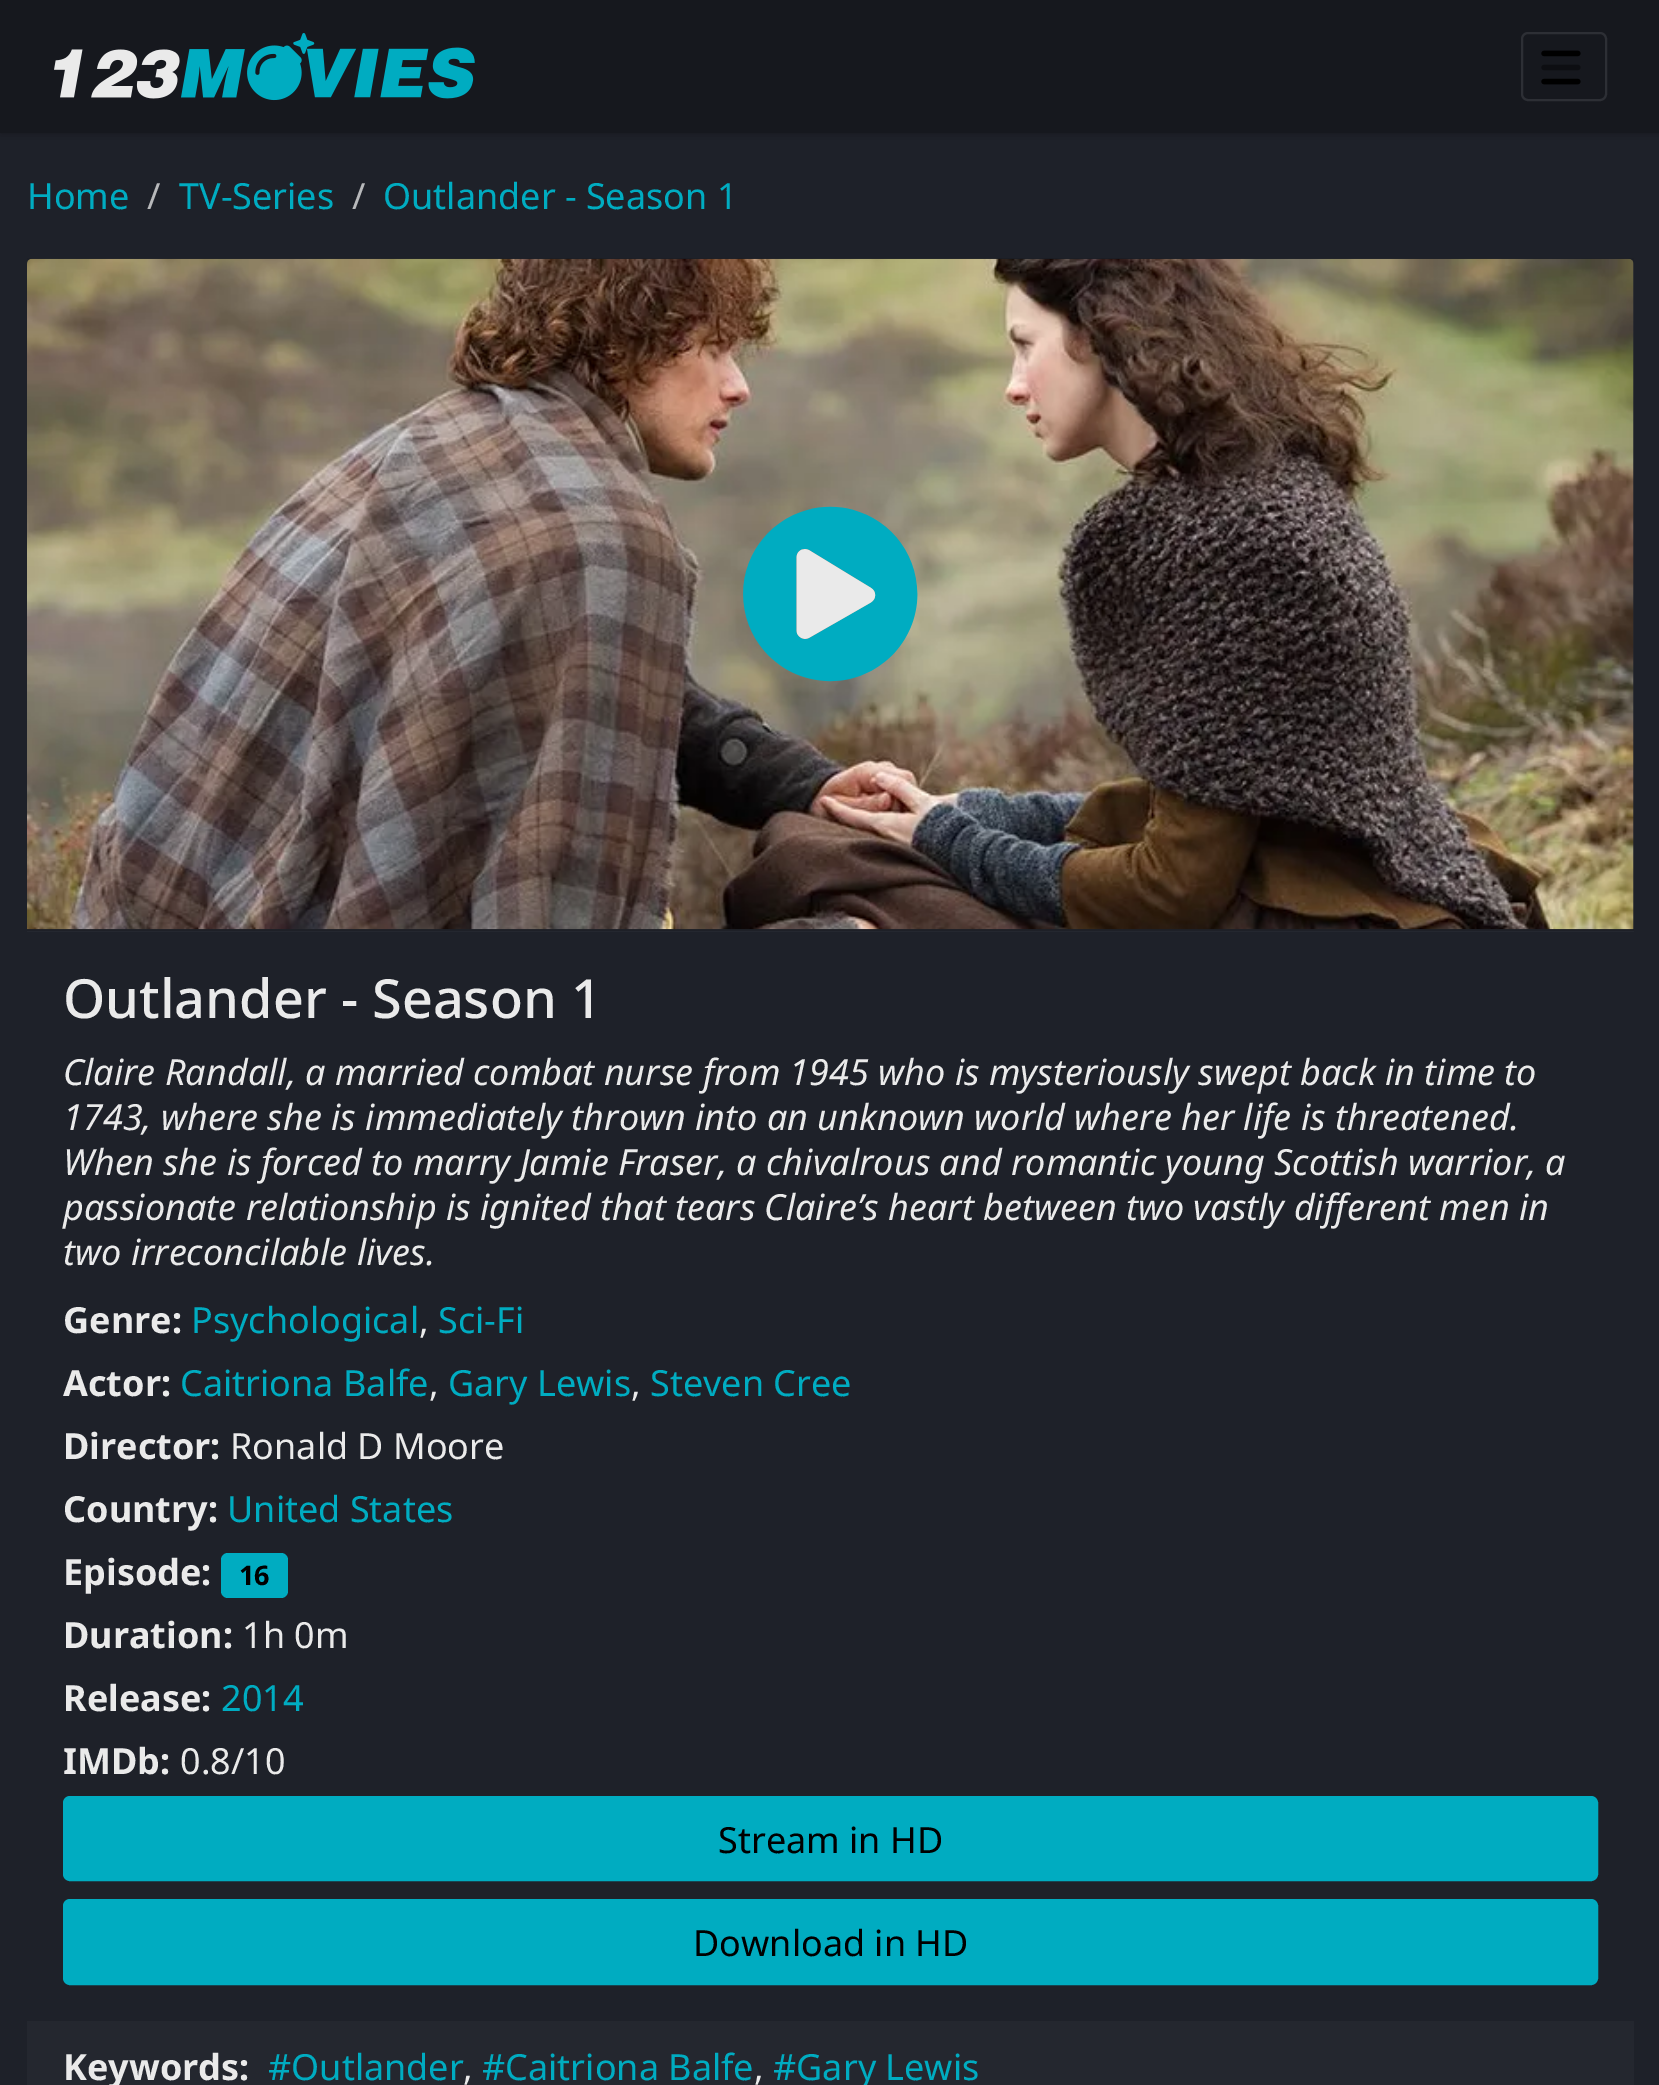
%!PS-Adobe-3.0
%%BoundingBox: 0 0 1659 2085
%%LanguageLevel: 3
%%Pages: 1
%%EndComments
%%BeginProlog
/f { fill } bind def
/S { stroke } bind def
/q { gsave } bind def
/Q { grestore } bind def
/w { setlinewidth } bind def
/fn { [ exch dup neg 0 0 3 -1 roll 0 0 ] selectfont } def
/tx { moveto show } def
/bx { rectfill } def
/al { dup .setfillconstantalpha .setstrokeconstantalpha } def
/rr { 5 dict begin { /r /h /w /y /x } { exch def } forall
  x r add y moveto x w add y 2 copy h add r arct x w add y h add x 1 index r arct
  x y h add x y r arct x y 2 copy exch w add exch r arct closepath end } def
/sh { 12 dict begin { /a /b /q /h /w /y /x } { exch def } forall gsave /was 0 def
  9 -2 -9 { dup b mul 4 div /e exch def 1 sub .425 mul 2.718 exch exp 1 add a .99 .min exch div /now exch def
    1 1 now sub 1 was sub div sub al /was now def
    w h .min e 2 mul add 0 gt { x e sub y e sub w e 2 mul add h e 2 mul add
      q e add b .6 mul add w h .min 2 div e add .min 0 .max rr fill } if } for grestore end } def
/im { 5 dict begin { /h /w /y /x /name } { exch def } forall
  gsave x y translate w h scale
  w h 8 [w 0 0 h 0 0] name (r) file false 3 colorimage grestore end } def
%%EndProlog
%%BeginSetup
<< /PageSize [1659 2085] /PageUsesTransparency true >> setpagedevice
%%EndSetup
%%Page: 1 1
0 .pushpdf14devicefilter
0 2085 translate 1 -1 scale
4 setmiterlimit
0.118 0.129 0.161 setrgbcolor
0 0 1659 2085 bx
0 setgray
0 0 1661 133 0 5.5 0.3 sh
0.086 0.094 0.118 setrgbcolor
0 0 1659 133 bx
(image0.raw) 54 33 421 68 im
0.176 0.184 0.208 setrgbcolor
2 w
1522 33 84 67 6 rr S
(image1.raw) 1541 50 40 35 im
/NotoSans-Regular 36 fn
0 0.675 0.757 setrgbcolor
(Home) 27 209 tx
0.722 0.725 0.733 setrgbcolor
(/) 147 209 tx
0 0.675 0.757 setrgbcolor
(TV-Series) 179 209 tx
0.722 0.725 0.733 setrgbcolor
(/) 352 209 tx
0 0.675 0.757 setrgbcolor
(Outlander - Season 1) 383 209 tx
0.03 al
0.918 setgray
27 259 1607 673 bx
0.18 al
0 setgray
27 929 1607 2 bx
1 al
(image2.raw) 27 258 1607 672 im
(image3.raw) 743 506 175 176 im
/NotoSans-Medium 54 fn
0.918 setgray
(Outlander - Season 1) 63 1018 tx
/NotoSans-Italic 36 fn
(Claire Randall, a married combat nurse from 1945 who is mysteriously swept back in time to) 63 1085 tx
(1743, where she is immediately thrown into an unknown world where her life is threatened.) 63 1130 tx
(When she is forced to marry Jamie Fraser, a chivalrous and romantic young Scottish warrior, a) 63 1175 tx
(passionate relationship is ignited that tears Claire’s heart between two vastly different men in) 63 1220 tx
(two irreconcilable lives.) 63 1265 tx
/NotoSans-Bold 36 fn
(Genre:) 63 1333 tx
/NotoSans-Regular 36 fn
0 0.675 0.757 setrgbcolor
(Psychological) 191 1333 tx
0.918 setgray
(,) 419 1333 tx
0 0.675 0.757 setrgbcolor
(Sci-Fi) 438 1333 tx
/NotoSans-Bold 36 fn
0.918 setgray
(Actor:) 63 1396 tx
/NotoSans-Regular 36 fn
0 0.675 0.757 setrgbcolor
(Caitriona Balfe) 180 1396 tx
0.918 setgray
(,) 429 1396 tx
0 0.675 0.757 setrgbcolor
(Gary Lewis) 448 1396 tx
0.918 setgray
(,) 631 1396 tx
0 0.675 0.757 setrgbcolor
(Steven Cree) 650 1396 tx
/NotoSans-Bold 36 fn
0.918 setgray
(Director:) 63 1459 tx
/NotoSans-Regular 36 fn
(Ronald D Moore) 230 1459 tx
/NotoSans-Bold 36 fn
(Country:) 63 1522 tx
/NotoSans-Regular 36 fn
0 0.675 0.757 setrgbcolor
(United States) 227 1522 tx
/NotoSans-Bold 36 fn
0.918 setgray
(Episode:) 63 1585 tx
0 0.675 0.757 setrgbcolor
221 1553 67 45 7 rr f
/NotoSans-Bold 27 fn
0 setgray
(16) 239 1585 tx
/NotoSans-Bold 36 fn
0.918 setgray
(Duration:) 63 1648 tx
/NotoSans-Regular 36 fn
(1h 0m) 242 1648 tx
/NotoSans-Bold 36 fn
(Release:) 63 1711 tx
/NotoSans-Regular 36 fn
0 0.675 0.757 setrgbcolor
(2014) 221 1711 tx
/NotoSans-Bold 36 fn
0.918 setgray
(IMDb:) 63 1774 tx
/NotoSans-Regular 36 fn
(0.8/10) 180 1774 tx
0 0.675 0.757 setrgbcolor
64 1797 1533 83 6 rr q f Q
S
0 setgray
(Stream in HD) 718 1853 tx
0 0.675 0.757 setrgbcolor
64 1900 1533 84 6 rr q f Q
S
0 setgray
(Download in HD) 693 1956 tx
0.03 al
0.918 setgray
27 2021 1607 64 bx
/NotoSans-Bold 36 fn
1 al
(Keywords:) 63 2080 tx
/NotoSans-Regular 36 fn
0 0.675 0.757 setrgbcolor
(#Outlander) 268 2080 tx
0.918 setgray
(,) 463 2080 tx
0 0.675 0.757 setrgbcolor
(#Caitriona Balfe) 482 2080 tx
0.918 setgray
(,) 754 2080 tx
0 0.675 0.757 setrgbcolor
(#Gary Lewis) 773 2080 tx
.poppdf14devicefilter showpage
%%EOF
